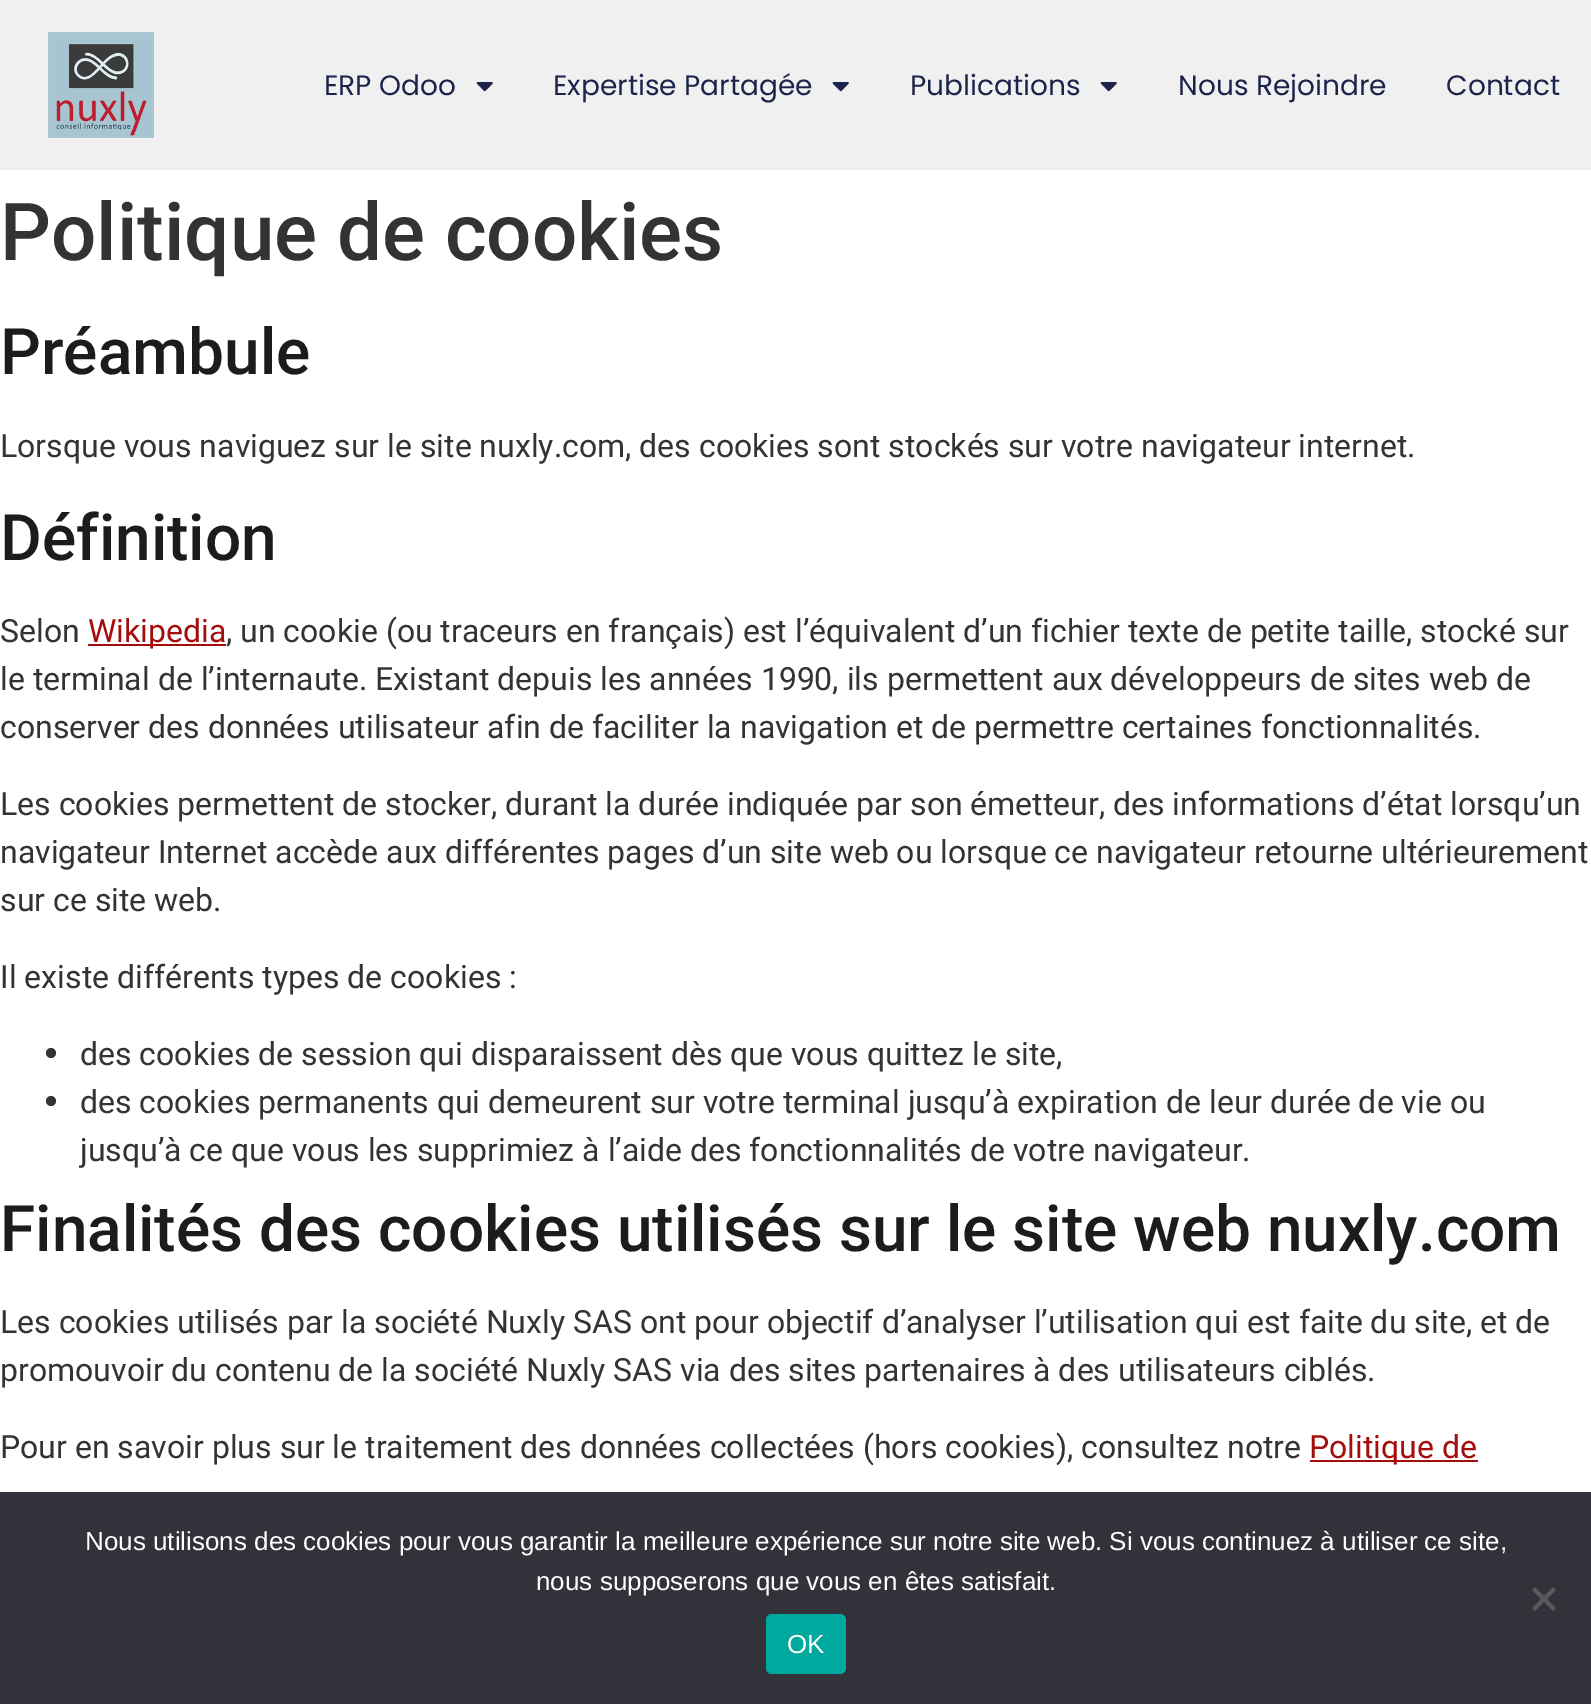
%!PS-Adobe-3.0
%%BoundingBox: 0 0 1591 1704
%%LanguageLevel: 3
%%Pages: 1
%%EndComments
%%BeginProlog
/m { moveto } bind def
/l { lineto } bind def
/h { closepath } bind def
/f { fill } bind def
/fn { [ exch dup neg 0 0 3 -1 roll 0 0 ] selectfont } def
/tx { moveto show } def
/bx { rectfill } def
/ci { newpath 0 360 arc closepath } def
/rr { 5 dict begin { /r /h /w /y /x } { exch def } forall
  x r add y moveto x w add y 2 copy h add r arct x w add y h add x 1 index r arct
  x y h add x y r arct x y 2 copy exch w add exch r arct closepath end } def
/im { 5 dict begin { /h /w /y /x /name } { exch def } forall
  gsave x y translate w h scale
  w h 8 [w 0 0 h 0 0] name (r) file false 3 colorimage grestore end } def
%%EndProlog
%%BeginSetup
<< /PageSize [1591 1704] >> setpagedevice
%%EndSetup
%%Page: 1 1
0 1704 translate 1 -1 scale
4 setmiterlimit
1 setgray
0 0 1591 1704 bx
0.941 setgray
0 0 1591 170 bx
(image0.raw) 48 32 106 106 im
/Poppins-Regular 28 fn
0.11 0.141 0.294 setrgbcolor
(ERP Odoo) 324 95 tx
(image1.raw) 476 82 17 10 im
(Expertise Partagée) 553 95 tx
(image1.raw) 832 82 17 10 im
(Publications) 910 95 tx
(image1.raw) 1100 82 17 10 im
(Nous Rejoindre) 1178 95 tx
(Contact) 1446 95 tx
/Roboto-Medium 80 fn
0.2 setgray
(Politique de cookies) 0 260 tx
/Roboto-Medium 64 fn
0.114 0.11 0.11 setrgbcolor
(Préambule) 0 374 tx
/Roboto-Regular 32 fn
0.2 setgray
(Lorsque vous naviguez sur le site nuxly.com, des cookies sont stockés sur votre navigateur internet.) 0 457 tx
/Roboto-Medium 64 fn
0.114 0.11 0.11 setrgbcolor
(Définition) 0 560 tx
/Roboto-Regular 32 fn
0.2 setgray
(Selon) 0 642 tx
0.647 0.051 0.051 setrgbcolor
88 644 138 2 bx
(Wikipedia) 88 642 tx
0.2 setgray
(, un cookie \(ou traceurs en français\) est l’équivalent d’un fichier texte de petite taille, stocké sur) 226 642 tx
(le terminal de l’internaute. Existant depuis les années 1990, ils permettent aux développeurs de sites web de) 0 690 tx
(conserver des données utilisateur afin de faciliter la navigation et de permettre certaines fonctionnalités.) 0 738 tx
(Les cookies permettent de stocker, durant la durée indiquée par son émetteur, des informations d’état lorsqu’un) 0 815 tx
(navigateur Internet accède aux différentes pages d’un site web ou lorsque ce navigateur retourne ultérieurement) 0 863 tx
(sur ce site web.) 0 911 tx
(Il existe différents types de cookies :) 0 988 tx
51 1053 5 ci f
(des cookies de session qui disparaissent dès que vous quittez le site,) 80 1065 tx
51 1101 5 ci f
(des cookies permanents qui demeurent sur votre terminal jusqu’à expiration de leur durée de vie ou) 80 1113 tx
(jusqu’à ce que vous les supprimiez à l’aide des fonctionnalités de votre navigateur.) 80 1161 tx
/Roboto-Medium 64 fn
0.114 0.11 0.11 setrgbcolor
(Finalités des cookies utilisés sur le site web nuxly.com) 0 1251 tx
/Roboto-Regular 32 fn
0.2 setgray
(Les cookies utilisés par la société Nuxly SAS ont pour objectif d’analyser l’utilisation qui est faite du site, et de) 0 1333 tx
(promouvoir du contenu de la société Nuxly SAS via des sites partenaires à des utilisateurs ciblés.) 0 1381 tx
(Pour en savoir plus sur le traitement des données collectées \(hors cookies\), consultez notre) 0 1458 tx
0.647 0.051 0.051 setrgbcolor
1310 1460 168 2 bx
(Politique de) 1309 1458 tx
0.196 0.196 0.227 setrgbcolor
0 1492 1591 212 bx
/LiberationSans-Regular 26 fn
1 setgray
(Nous utilisons des cookies pour vous garantir la meilleure expérience sur notre site web. Si vous continuez à utiliser ce site,) 85 1550 tx
(nous supposerons que vous en êtes satisfait.) 536 1590 tx
0.349 0.349 0.365 setrgbcolor
1553 1587 m 1556 1590 l 1535 1611 l 1532 1608 l h f
1532 1590 m 1535 1587 l 1556 1608 l 1553 1611 l h f
0 0.663 0.616 setrgbcolor
766 1614 80 60 6 rr f
1 setgray
(OK) 787 1653 tx
showpage
%%EOF
